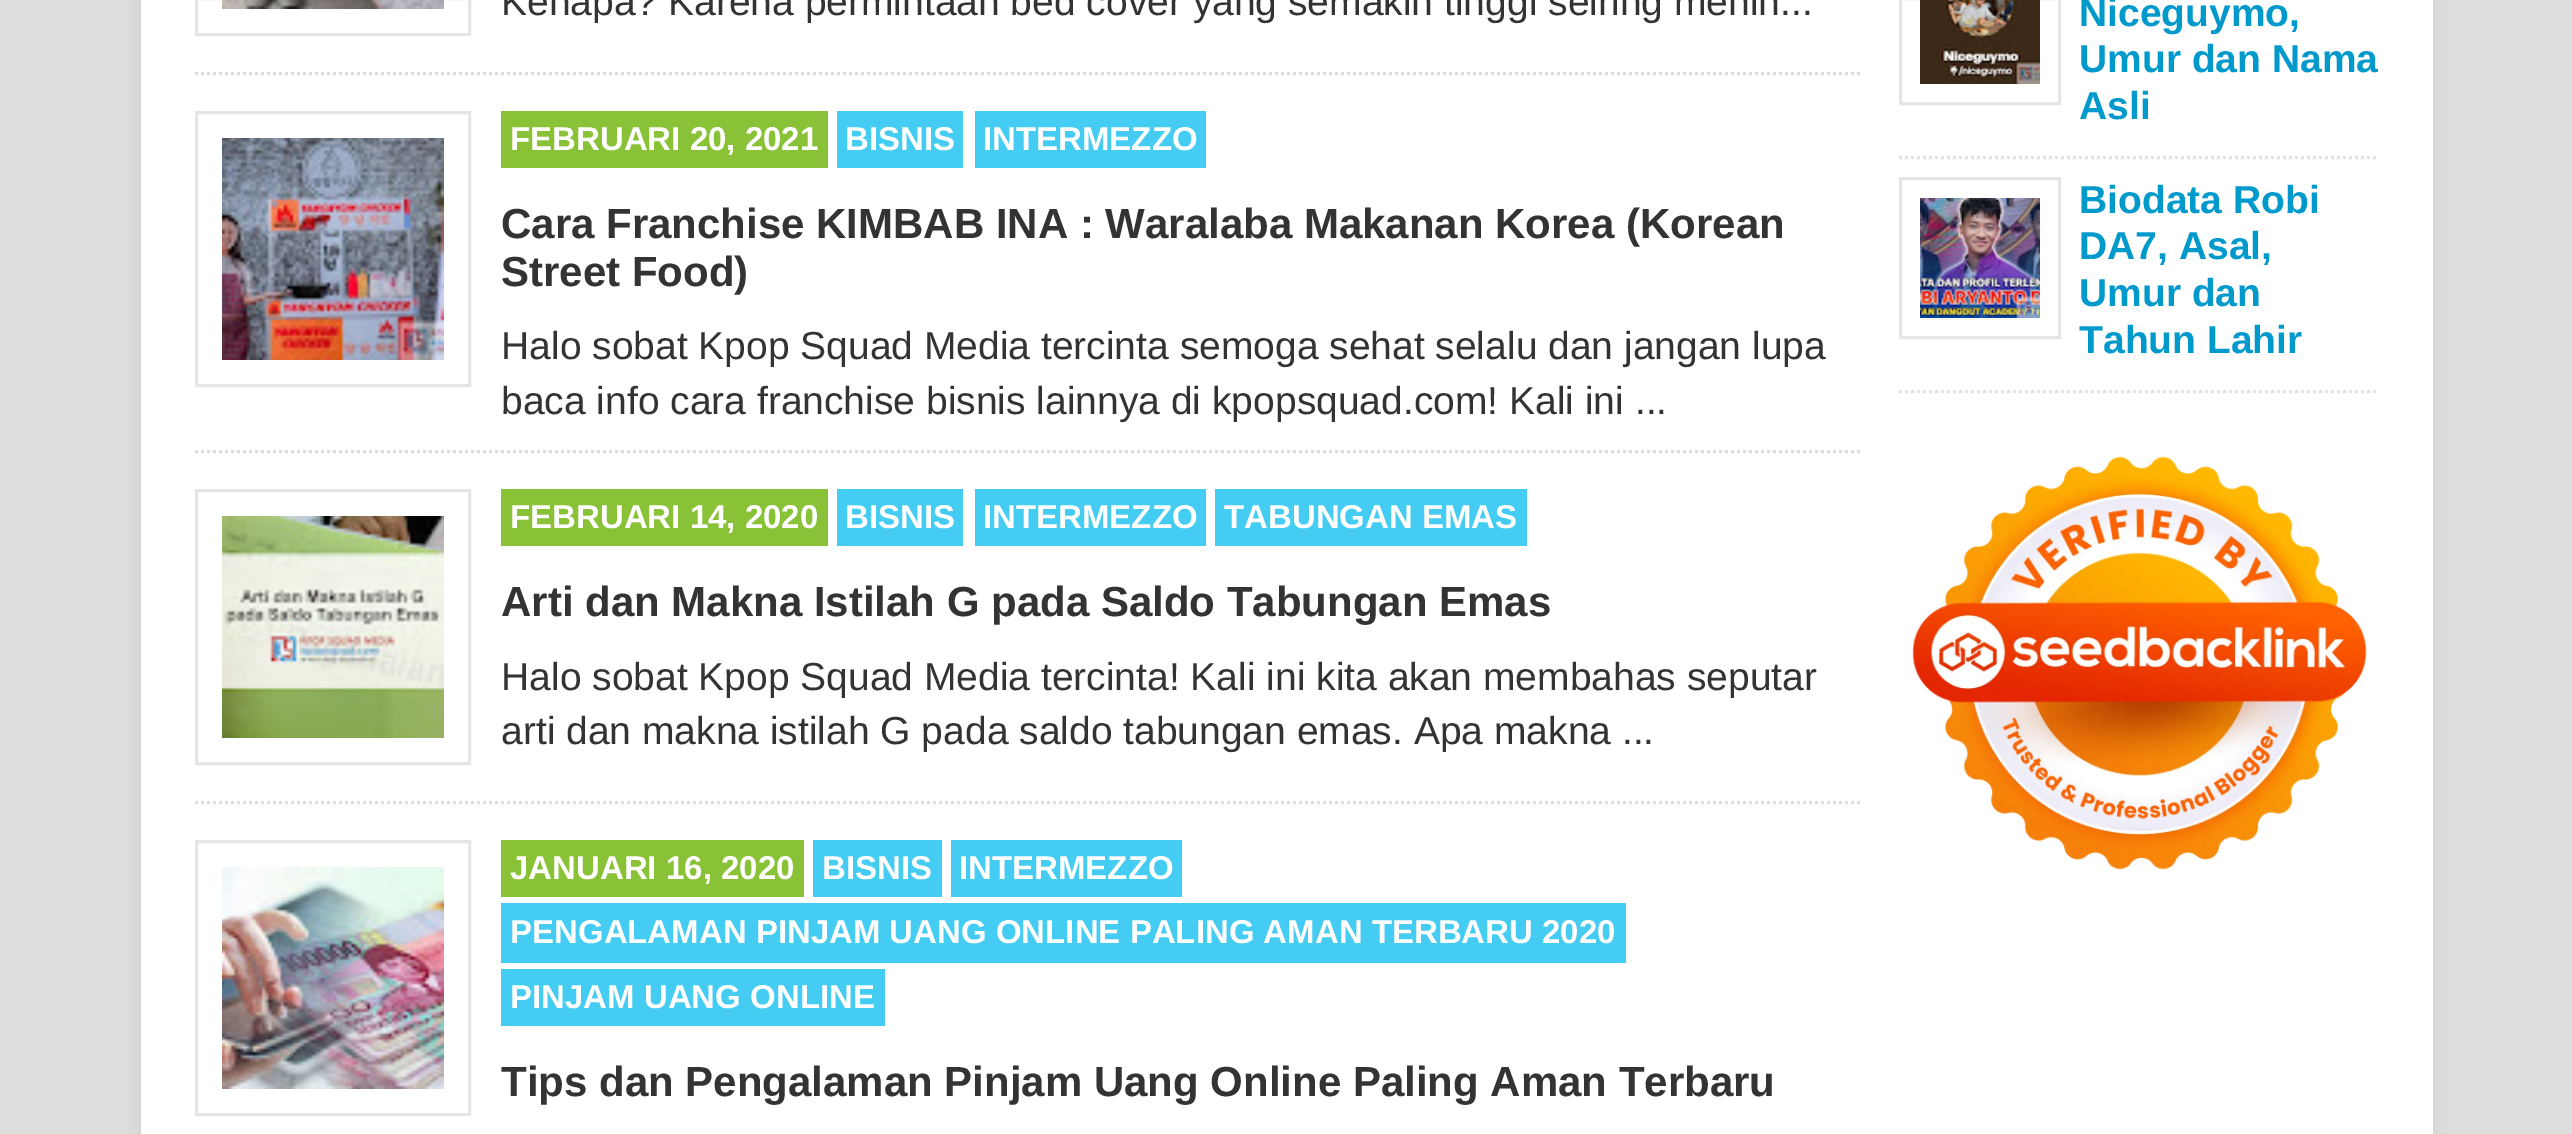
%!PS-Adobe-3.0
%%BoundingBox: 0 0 2572 1134
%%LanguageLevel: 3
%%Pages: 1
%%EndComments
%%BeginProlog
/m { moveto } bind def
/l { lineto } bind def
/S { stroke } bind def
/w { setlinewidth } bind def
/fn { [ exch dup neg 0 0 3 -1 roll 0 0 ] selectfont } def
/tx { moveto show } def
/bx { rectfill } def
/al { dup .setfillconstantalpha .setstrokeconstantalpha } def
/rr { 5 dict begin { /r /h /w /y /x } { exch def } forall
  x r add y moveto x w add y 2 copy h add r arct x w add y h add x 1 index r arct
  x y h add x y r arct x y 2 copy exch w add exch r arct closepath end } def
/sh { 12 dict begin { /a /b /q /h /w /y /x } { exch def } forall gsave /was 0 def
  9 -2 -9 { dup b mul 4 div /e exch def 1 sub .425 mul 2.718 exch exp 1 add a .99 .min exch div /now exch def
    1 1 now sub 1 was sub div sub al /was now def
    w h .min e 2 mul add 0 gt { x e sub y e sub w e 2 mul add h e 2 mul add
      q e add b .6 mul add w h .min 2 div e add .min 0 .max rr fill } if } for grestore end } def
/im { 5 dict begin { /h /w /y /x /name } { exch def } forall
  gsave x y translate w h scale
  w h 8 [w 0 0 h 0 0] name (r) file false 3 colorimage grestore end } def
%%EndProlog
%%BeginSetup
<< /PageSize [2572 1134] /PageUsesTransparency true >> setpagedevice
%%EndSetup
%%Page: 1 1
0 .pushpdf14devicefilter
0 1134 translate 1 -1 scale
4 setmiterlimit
0.867 setgray
0 0 2572 1134 bx
0.118 setgray
141 -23 2292 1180 0 7.5 0.08 sh
1 setgray
141 0 2292 1134 bx
0.867 setgray
3 w
[3 3] 0 setdash
195 73.5 m 1863 73.5 l S
0.898 setgray
[] 0 setdash
196.5 -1.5 273 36 rectstroke
(image0.raw) 222 0 222 9 im
/LiberationSans-Regular 39 fn
0.2 setgray
(Kenapa? Karena permintaan bed cover yang semakin tinggi seiring menin...) 501 15 tx
0.867 setgray
[3 3] 0 setdash
195 451.5 m 1863 451.5 l S
0.898 setgray
[] 0 setdash
196.5 112.5 273 273 rectstroke
(image1.raw) 222 138 222 222 im
0.537 0.761 0.216 setrgbcolor
501 111 327 57 bx
/LiberationSans-Bold 33 fn
1 setgray
(FEBRUARI 20, 2021) 510 150 tx
0.267 0.8 0.949 setrgbcolor
837 111 126 57 bx
1 setgray
(BISNIS) 845 150 tx
0.267 0.8 0.949 setrgbcolor
975 111 231 57 bx
1 setgray
(INTERMEZZO) 983 150 tx
/LiberationSans-Bold 42 fn
0.2 setgray
(Cara Franchise KIMBAB INA : Waralaba Makanan Korea \(Korean) 501 238 tx
(Street Food\)) 501 286 tx
/LiberationSans-Regular 39 fn
(Halo sobat Kpop Squad Media tercinta semoga sehat selalu dan jangan lupa) 501 359 tx
(baca info cara franchise bisnis lainnya di kpopsquad.com! Kali ini ...) 501 414 tx
0.867 setgray
[3 3] 0 setdash
195 802.5 m 1863 802.5 l S
0.898 setgray
[] 0 setdash
196.5 490.5 273 273 rectstroke
(image2.raw) 222 516 222 222 im
0.537 0.761 0.216 setrgbcolor
501 489 327 57 bx
/LiberationSans-Bold 33 fn
1 setgray
(FEBRUARI 14, 2020) 510 528 tx
0.267 0.8 0.949 setrgbcolor
837 489 126 57 bx
1 setgray
(BISNIS) 845 528 tx
0.267 0.8 0.949 setrgbcolor
975 489 231 57 bx
1 setgray
(INTERMEZZO) 983 528 tx
0.267 0.8 0.949 setrgbcolor
1215 489 312 57 bx
1 setgray
(TABUNGAN EMAS) 1224 528 tx
/LiberationSans-Bold 42 fn
0.2 setgray
(Arti dan Makna Istilah G pada Saldo Tabungan Emas) 501 616 tx
/LiberationSans-Regular 39 fn
(Halo sobat Kpop Squad Media tercinta! Kali ini kita akan membahas seputar) 501 690 tx
(arti dan makna istilah G pada saldo tabungan emas. Apa makna ...) 501 744 tx
0.898 setgray
196.5 841.5 273 273 rectstroke
(image3.raw) 222 867 222 222 im
0.537 0.761 0.216 setrgbcolor
501 840 303 57 bx
/LiberationSans-Bold 33 fn
1 setgray
(JANUARI 16, 2020) 510 879 tx
0.267 0.8 0.949 setrgbcolor
813 840 129 57 bx
1 setgray
(BISNIS) 822 879 tx
0.267 0.8 0.949 setrgbcolor
951 840 231 57 bx
1 setgray
(INTERMEZZO) 959 879 tx
0.267 0.8 0.949 setrgbcolor
501 903 1125 60 bx
1 setgray
(PENGALAMAN PINJAM UANG ONLINE PALING AMAN TERBARU 2020) 510 943 tx
0.267 0.8 0.949 setrgbcolor
501 969 384 57 bx
1 setgray
(PINJAM UANG ONLINE) 510 1008 tx
/LiberationSans-Bold 42 fn
0.2 setgray
(Tips dan Pengalaman Pinjam Uang Online Paling Aman Terbaru) 501 1096 tx
0.886 setgray
[3 3] 0 setdash
1899 157.5 m 2379 157.5 l S
0.898 setgray
[] 0 setdash
1900.5 -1.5 159 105 rectstroke
(image4.raw) 1920 0 120 84 im
/LiberationSans-Bold 39 fn
0 0.6 0.8 setrgbcolor
(Niceguymo,) 2079 26 tx
(Umur dan Nama) 2079 72 tx
(Asli) 2079 119 tx
0.886 setgray
[3 3] 0 setdash
1899 391.5 m 2379 391.5 l S
0.898 setgray
[] 0 setdash
1900.5 178.5 159 159 rectstroke
(image5.raw) 1920 198 120 120 im
0 0.6 0.8 setrgbcolor
(Biodata Robi) 2079 213 tx
(DA7, Asal,) 2079 259 tx
(Umur dan) 2079 306 tx
(Tahun Lahir) 2079 353 tx
(image6.raw) 1912 456 455 414 im
.poppdf14devicefilter showpage
%%EOF
